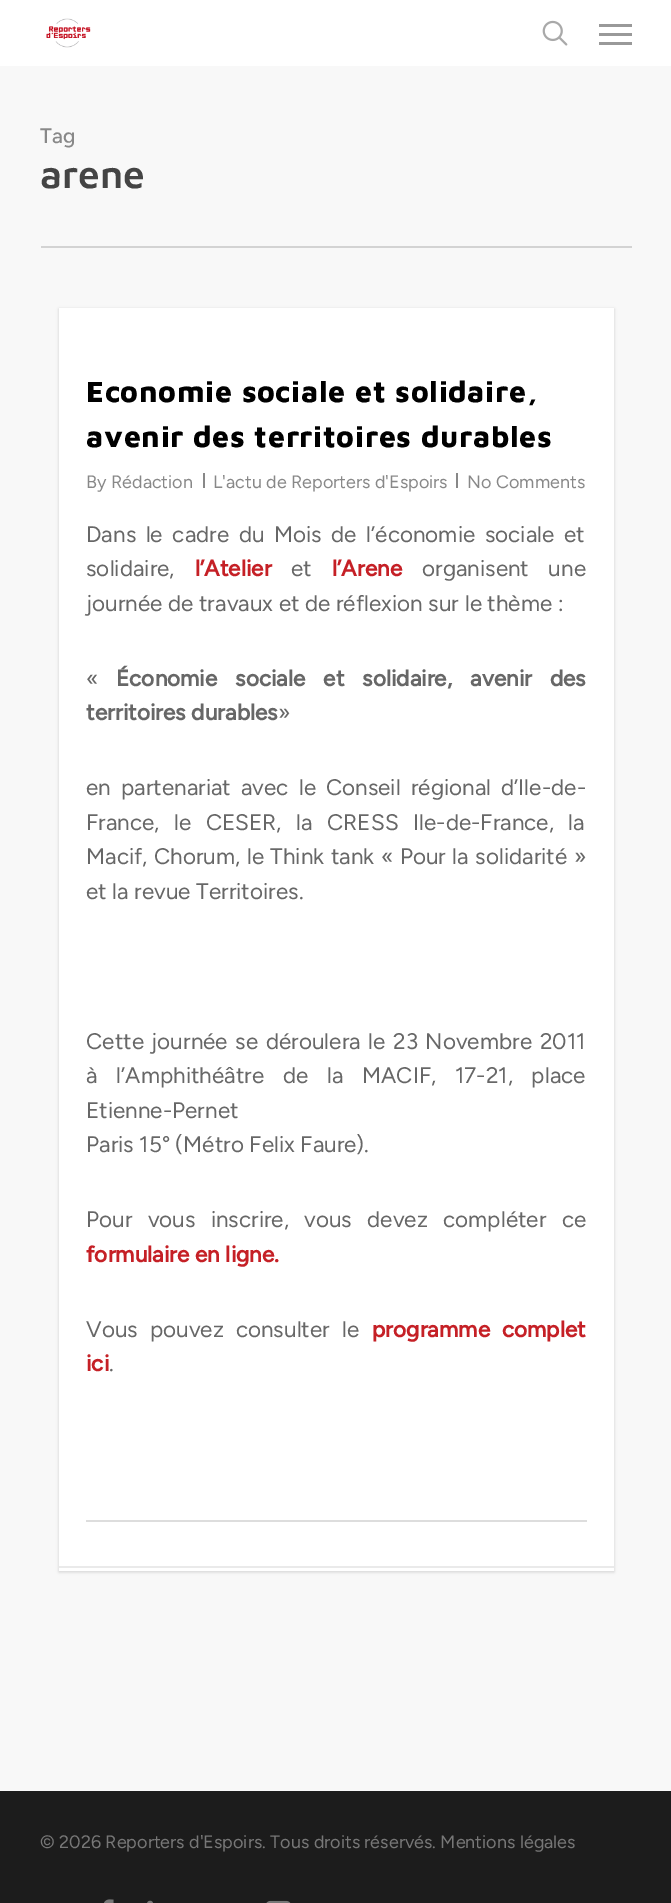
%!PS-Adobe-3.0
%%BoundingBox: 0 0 671 1903
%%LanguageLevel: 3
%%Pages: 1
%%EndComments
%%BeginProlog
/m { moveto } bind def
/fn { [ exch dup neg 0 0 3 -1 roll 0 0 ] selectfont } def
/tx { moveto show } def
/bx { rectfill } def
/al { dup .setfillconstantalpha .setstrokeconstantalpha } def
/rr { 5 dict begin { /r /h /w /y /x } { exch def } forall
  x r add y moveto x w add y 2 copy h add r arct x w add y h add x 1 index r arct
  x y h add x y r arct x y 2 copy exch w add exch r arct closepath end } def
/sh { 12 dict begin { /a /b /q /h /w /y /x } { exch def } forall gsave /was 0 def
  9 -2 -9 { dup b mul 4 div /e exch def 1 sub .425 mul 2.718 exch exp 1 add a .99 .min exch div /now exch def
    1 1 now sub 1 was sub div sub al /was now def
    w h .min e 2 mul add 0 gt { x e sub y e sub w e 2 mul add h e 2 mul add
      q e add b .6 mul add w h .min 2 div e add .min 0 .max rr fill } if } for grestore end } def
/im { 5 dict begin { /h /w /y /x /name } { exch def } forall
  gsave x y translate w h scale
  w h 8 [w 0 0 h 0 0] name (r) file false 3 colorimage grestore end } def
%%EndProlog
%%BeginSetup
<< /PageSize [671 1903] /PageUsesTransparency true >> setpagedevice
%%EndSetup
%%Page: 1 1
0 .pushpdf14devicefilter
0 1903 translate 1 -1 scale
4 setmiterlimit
1 setgray
0 0 671 1903 bx
(image0.raw) 46 18 45 30 im
(image1.raw) 542 20 26 26 im
0.6 setgray
599 24 33 3 bx
599 42 33 3 bx
599 33 33 3 bx
0.973 setgray
0 66 671 1725 bx
0.827 setgray
41 246 591 2 bx
/Figtree-Medium 21 fn
0.533 setgray
(Tag) 40 143 tx
/MavenPro-SemiBold 39 fn
0.267 setgray
(arene) 40 188 tx
0 setgray
59 309 555 1263 0 1.5 0.15 sh
1 setgray
59 308 555 1263 bx
0.867 setgray
86 1520 501 2 bx
/MavenPro-ExtraBold 30 fn
0 setgray
86 402 m 0.75 0 (Economie sociale et solidaire,) ashow
86 447 m 0.75 0 (avenir des territoires durables) ashow
/Figtree-Regular 18 fn
0.533 setgray
(By Rédaction) 86 488 tx
203 473 2 15 bx
(L'actu de Reporters d'Espoirs) 213 488 tx
456 473 2 15 bx
(No Comments) 467 488 tx
/Figtree-Regular 22.5 fn
0.404 setgray
86 542 m 4 0 32 (Dans le cadre du Mois de l’économie sociale et) widthshow
(solidaire,) 86 576 tx
/Figtree-Bold 22.5 fn
0.773 0.125 0.149 setrgbcolor
(l’Atelier) 195 576 tx
/Figtree-Regular 22.5 fn
0.404 setgray
(et) 291 576 tx
/Figtree-Bold 22.5 fn
0.773 0.125 0.149 setrgbcolor
(l’Arene) 332 576 tx
/Figtree-Regular 22.5 fn
0.404 setgray
422 576 m 14 0 32 (organisent une) widthshow
(journée de travaux et de réflexion sur le thème :) 86 611 tx
(«) 86 686 tx
/Figtree-Bold 22.5 fn
116 686 m 12.5 0 32 (Économie sociale et solidaire, avenir des) widthshow
(territoires durables) 86 720 tx
/Figtree-Regular 22.5 fn
(») 278 720 tx
86 795 m 4.5 0 32 (en partenariat avec le Conseil régional d’Ile-de-) widthshow
86 830 m 9 0 32 (France, le CESER, la CRESS Ile-de-France, la) widthshow
86 864 m 1 0 32 (Macif, Chorum, le Think tank « Pour la solidarité ») widthshow
(et la revue Territoires.) 86 899 tx
86 1049 m 2 0 32 (Cette journée se déroulera le 23 Novembre 2011) widthshow
86 1083 m 13.25 0 32 (à l’Amphithéâtre de la MACIF, 17-21, place) widthshow
(Etienne-Pernet) 86 1118 tx
(Paris 15° \(Métro Felix Faure\).) 86 1152 tx
86 1227 m 9.75 0 32 (Pour vous inscrire, vous devez compléter ce) widthshow
/Figtree-Bold 22.5 fn
0.773 0.125 0.149 setrgbcolor
(formulaire en ligne.) 86 1262 tx
/Figtree-Regular 22.5 fn
0.404 setgray
86 1337 m 6.5 0 32 (Vous pouvez consulter le) widthshow
/Figtree-Bold 22.5 fn
0.773 0.125 0.149 setrgbcolor
372 1337 m 6.5 0 32 (programme complet) widthshow
(ici) 86 1371 tx
/Figtree-Regular 22.5 fn
0.404 setgray
(.) 109 1371 tx
0.918 setgray
59 1566 555 2 bx
0.11 setgray
0 1791 671 112 bx
/Figtree-Regular 18 fn
0.467 setgray
(© 2026 Reporters d'Espoirs. Tous droits réservés. Mentions légales) 40 1848 tx
(image2.raw) 104 1899 10 4 im
(image3.raw) 147 1900 6 3 im
(image4.raw) 266 1900 25 3 im
.poppdf14devicefilter showpage
%%EOF
